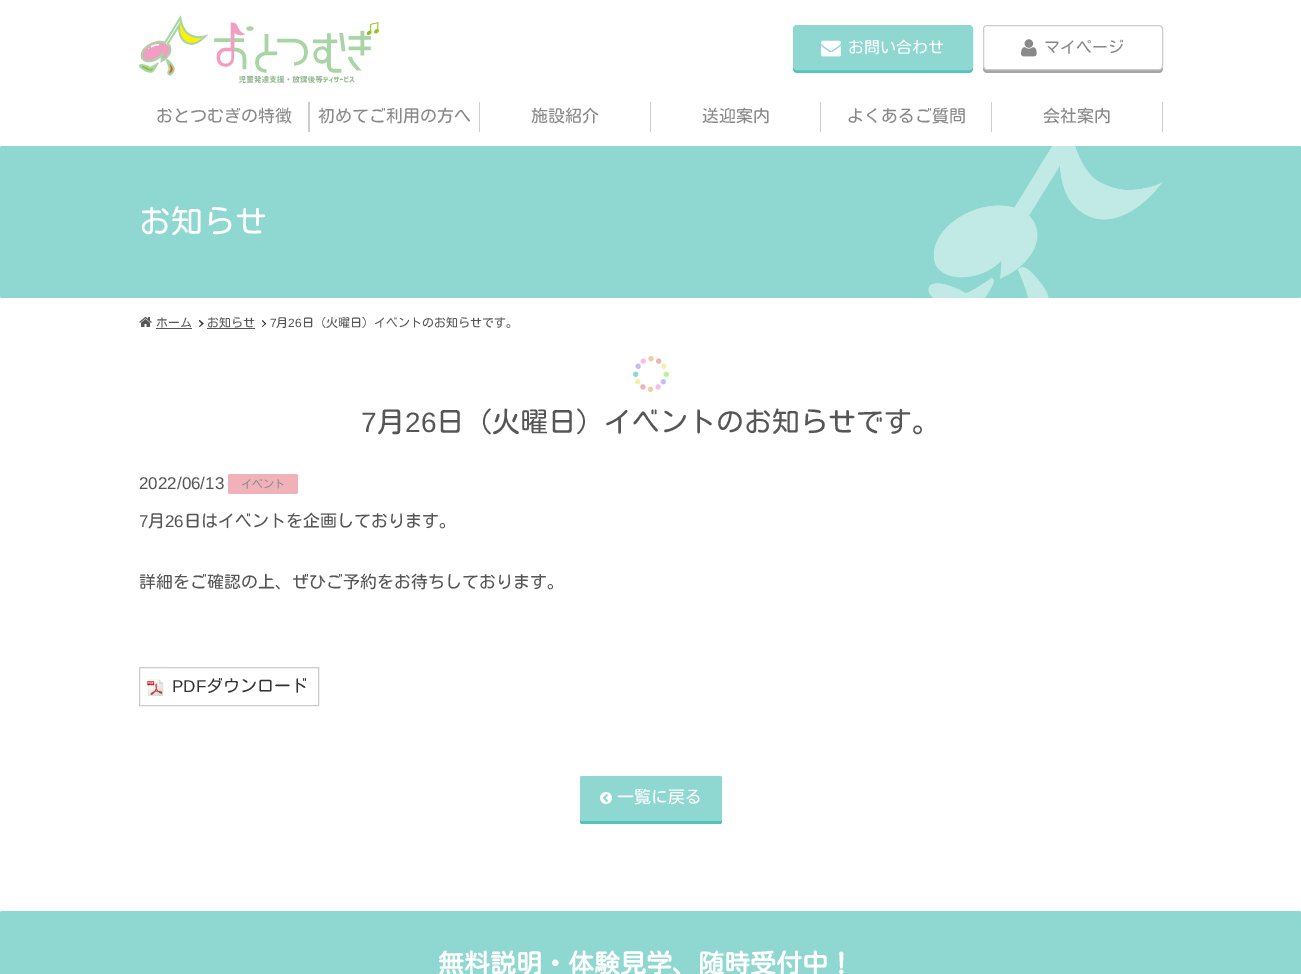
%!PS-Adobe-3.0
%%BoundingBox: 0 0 1301 974
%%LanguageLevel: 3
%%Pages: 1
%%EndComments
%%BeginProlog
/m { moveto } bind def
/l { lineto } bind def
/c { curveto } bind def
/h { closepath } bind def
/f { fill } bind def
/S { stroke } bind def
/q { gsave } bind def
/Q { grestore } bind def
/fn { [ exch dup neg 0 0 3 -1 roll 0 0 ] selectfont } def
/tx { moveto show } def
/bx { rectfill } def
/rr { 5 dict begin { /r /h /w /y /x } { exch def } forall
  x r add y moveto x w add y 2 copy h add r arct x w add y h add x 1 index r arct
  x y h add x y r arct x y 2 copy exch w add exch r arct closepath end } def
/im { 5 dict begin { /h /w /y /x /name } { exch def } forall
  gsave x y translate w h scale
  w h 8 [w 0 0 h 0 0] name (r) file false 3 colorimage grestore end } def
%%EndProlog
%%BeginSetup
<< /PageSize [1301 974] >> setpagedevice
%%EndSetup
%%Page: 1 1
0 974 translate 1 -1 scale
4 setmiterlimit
1 setgray
0 0 1301 974 bx
(image0.raw) 139 15 240 68 im
0.333 0.769 0.729 setrgbcolor
793 66 m 793 69 l 793 71 795 73 797 73 c 969 73 l 971 73 973 71 973 69 c 973 66 l 973 68 971 70 969 70 c 797 70 l 795 70 793 68 793 66 c h f
0.557 0.847 0.82 setrgbcolor
793.5 25.5 179 44 3.5 rr q f Q
S
(image1.raw) 821 40 20 17 im
/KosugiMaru-Regular 16 fn
1 setgray
(お問い合わせ) 848 53 tx
0.651 setgray
983 66 m 983 69 l 983 71 985 73 987 73 c 1159 73 l 1161 73 1163 71 1163 69 c 1163 66 l 1163 68 1161 70 1159 70 c 987 70 l 985 70 983 68 983 66 c h f
1 setgray
983.5 25.5 179 44 3.5 rr q f Q
0.8 setgray
S
(image2.raw) 1021 39 16 18 im
0.537 setgray
(マイページ) 1044 53 tx
/KosugiMaru-Regular 17 fn
(おとつむぎの特徴) 156 122 tx
0.8 setgray
308 102 2 30 bx
0.537 setgray
(初めてご利用の方へ) 318 122 tx
0.8 setgray
479 102 1 30 bx
0.537 setgray
(施設紹介) 531 122 tx
0.8 setgray
650 102 1 30 bx
0.537 setgray
(送迎案内) 702 122 tx
0.8 setgray
820 102 1 30 bx
0.537 setgray
(よくあるご質問) 847 122 tx
0.8 setgray
991 102 1 30 bx
0.537 setgray
(会社案内) 1043 122 tx
0.8 setgray
1162 102 1 30 bx
0.557 0.847 0.82 setrgbcolor
0 146 1301 152 2 rr f
/KosugiMaru-Regular 32 fn
1 setgray
(お知らせ) 139 233 tx
(image3.raw) 928 146 235 152 im
(image4.raw) 139 317 13 10 im
/KosugiMaru-Regular 12 fn
0.337 setgray
(ホーム) 156 327 tx
156 328 36 1 bx
0.2 setgray
199.5 320 m 203.5 323.5 l 202.5 324.5 l 199 321 l h f
202.5 323 m 203.5 323.5 l 199.5 327 l 199 326.5 l h f
0.337 setgray
(お知らせ) 207 327 tx
207 328 48 1 bx
0.2 setgray
262.5 320 m 266 323.5 l 265.5 324.5 l 262 321 l h f
265.5 323 m 266 323.5 l 262.5 327 l 262 326.5 l h f
/LiberationSans-Regular 12 fn
0.337 setgray
(7) 270 327 tx
/KosugiMaru-Regular 12 fn
(月) 276 327 tx
/LiberationSans-Regular 12 fn
(26) 288 327 tx
/KosugiMaru-Regular 12 fn
(日（火曜日）イベントのお知らせです。) 302 327 tx
(image5.raw) 633 356 36 36 im
/LiberationSans-Regular 28 fn
(7) 361 432 tx
/KosugiMaru-Regular 28 fn
(月) 377 432 tx
/LiberationSans-Regular 28 fn
(26) 405 432 tx
/KosugiMaru-Regular 28 fn
(日（火曜日）イベントのお知らせです。) 436 432 tx
/LiberationSans-Regular 17 fn
(2022/06/13) 139 489 tx
0.941 0.698 0.722 setrgbcolor
228 474 70 20 2 rr f
/KosugiMaru-Regular 11 fn
0.537 setgray
(イベント) 241 488 tx
/LiberationSans-Regular 17 fn
0.337 setgray
(7) 139 527 tx
/KosugiMaru-Regular 17 fn
(月) 148 527 tx
/LiberationSans-Regular 17 fn
(26) 165 527 tx
/KosugiMaru-Regular 17 fn
(日はイベントを企画しております。) 184 527 tx
(詳細をご確認の上、ぜひご予約をお待ちしております。) 139 588 tx
(image6.raw) 146 679 18 17 im
0.8 setgray
139.5 667.5 179 38 rectstroke
/LiberationSans-Regular 17 fn
0.2 setgray
(PDF) 172 692 tx
/KosugiMaru-Regular 17 fn
(ダウンロード) 206 692 tx
0.333 0.769 0.729 setrgbcolor
580 819 m 580 822 l 580 823 581 824 582 824 c 720 824 l 721 824 722 823 722 822 c 722 819 l 722 820 721 821 720 821 c 582 821 l 581 821 580 820 580 819 c h f
0.557 0.847 0.82 setrgbcolor
580 776 142 45 2 rr f
(image7.raw) 600 792 12 12 im
1 setgray
(一覧に戻る) 617 803 tx
0.557 0.847 0.82 setrgbcolor
0 911 1301 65 2 rr f
/KosugiMaru-Bold 26 fn
1 setgray
(無料説明・体験見学、随時受付中！) 438 973 tx
showpage
%%EOF
